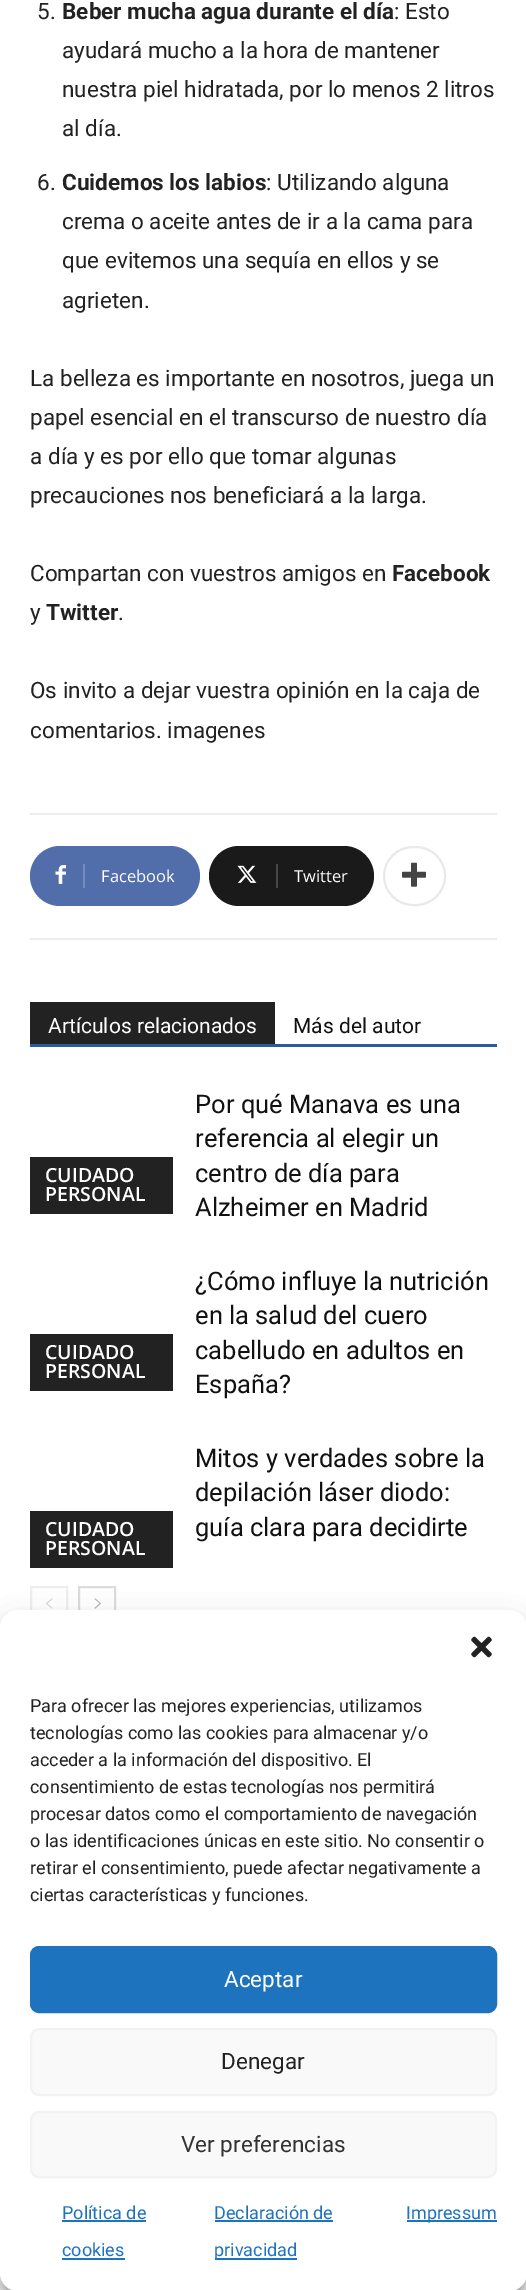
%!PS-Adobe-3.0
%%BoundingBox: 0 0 526 2290
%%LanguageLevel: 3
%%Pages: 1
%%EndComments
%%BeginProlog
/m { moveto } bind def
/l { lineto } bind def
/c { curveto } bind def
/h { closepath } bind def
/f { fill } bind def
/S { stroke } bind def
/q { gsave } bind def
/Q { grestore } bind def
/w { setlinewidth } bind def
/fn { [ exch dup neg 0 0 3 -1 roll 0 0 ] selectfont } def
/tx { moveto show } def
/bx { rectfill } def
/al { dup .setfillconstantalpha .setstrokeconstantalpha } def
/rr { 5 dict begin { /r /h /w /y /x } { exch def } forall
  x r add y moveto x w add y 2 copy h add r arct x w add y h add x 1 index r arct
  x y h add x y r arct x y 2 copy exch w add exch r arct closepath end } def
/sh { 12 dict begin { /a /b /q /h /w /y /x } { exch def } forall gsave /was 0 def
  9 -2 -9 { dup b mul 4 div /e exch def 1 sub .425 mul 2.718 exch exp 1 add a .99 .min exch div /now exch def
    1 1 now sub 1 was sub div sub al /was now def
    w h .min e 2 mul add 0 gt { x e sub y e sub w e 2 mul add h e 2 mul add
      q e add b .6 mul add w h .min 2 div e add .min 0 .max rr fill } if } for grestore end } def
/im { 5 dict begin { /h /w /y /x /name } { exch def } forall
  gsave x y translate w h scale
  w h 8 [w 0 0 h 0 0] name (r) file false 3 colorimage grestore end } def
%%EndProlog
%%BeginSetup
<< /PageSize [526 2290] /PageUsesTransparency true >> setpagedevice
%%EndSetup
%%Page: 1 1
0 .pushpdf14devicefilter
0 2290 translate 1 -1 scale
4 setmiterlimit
1 setgray
0 0 526 2290 bx
/Roboto-Regular 22.5 fn
0.133 setgray
(5.) 37 19 tx
/Roboto-Bold 22.5 fn
(Beber mucha agua durante el día) 62 19 tx
/Roboto-Regular 22.5 fn
(: Esto) 394 19 tx
(ayudará mucho a la hora de mantener) 62 58 tx
(nuestra piel hidratada, por lo menos 2 litros) 62 97 tx
(al día.) 62 136 tx
(6.) 37 190 tx
/Roboto-Bold 22.5 fn
(Cuidemos los labios) 62 190 tx
/Roboto-Regular 22.5 fn
(: Utilizando alguna) 266 190 tx
(crema o aceite antes de ir a la cama para) 62 229 tx
(que evitemos una sequía en ellos y se) 62 268 tx
(agrieten.) 62 308 tx
(La belleza es importante en nosotros, juega un) 30 386 tx
(papel esencial en el transcurso de nuestro día) 30 425 tx
(a día y es por ello que tomar algunas) 30 464 tx
(precauciones nos beneficiará a la larga.) 30 503 tx
(Compartan con vuestros amigos en) 30 581 tx
/Roboto-Bold 22.5 fn
(Facebook) 392 581 tx
/Roboto-Regular 22.5 fn
(y) 30 620 tx
/Roboto-Bold 22.5 fn
(Twitter) 46 620 tx
/Roboto-Regular 22.5 fn
(.) 118 620 tx
(Os invito a dejar vuestra opinión en la caja de) 30 698 tx
(comentarios. imagenes) 30 738 tx
0.929 setgray
30 813 467 2 bx
30 938 467 2 bx
0.318 0.431 0.671 setrgbcolor
83 846 m 170 846 l 186.5 846 200 859.5 200 876 c 200 892.5 186.5 906 170 906 c 83 906 l h f
60 846 m 92 846 l 92 906 l 60 906 l 43.5 906 30 892.5 30 876 c 30 859.5 43.5 846 60 846 c h f
(image0.raw) 55 865 11 19 im
0.455 0.545 0.737 setrgbcolor
83 864 2 24 bx
/OpenSans-Regular 16.5 fn
1 setgray
(Facebook) 101 882 tx
0.102 setgray
276 846 m 344 846 l 360.5 846 374 859.5 374 876 c 374 892.5 360.5 906 344 906 c 276 906 l h f
239 846 m 285 846 l 285 906 l 239 906 l 222.5 906 209 892.5 209 876 c 209 859.5 222.5 846 239 846 c h f
(image1.raw) 237 865 20 18 im
0.282 setgray
276 864 2 24 bx
1 setgray
(Twitter) 294 882 tx
0.914 setgray
2 w
384 847 61 58 29 rr S
(image2.raw) 402 862 24 25 im
0.18 0.353 0.608 setrgbcolor
30 1044 467 3 bx
0.133 setgray
30 1002 245 42 bx
/Roboto-Regular 21 fn
1 setgray
(Artículos relacionados) 48 1033 tx
0.067 setgray
(Más del autor) 293 1033 tx
0.133 setgray
30 1157 143 57 bx
/OpenSans-SemiBold 19.5 fn
1 setgray
(CUIDADO) 45 1182 tx
(PERSONAL) 45 1201 tx
/Roboto-Regular 25.5 fn
0.067 setgray
(Por qué Manava es una) 195 1113 tx
(referencia al elegir un) 195 1147 tx
(centro de día para) 195 1182 tx
(Alzheimer en Madrid) 195 1216 tx
0.133 setgray
30 1334 143 57 bx
/OpenSans-SemiBold 19.5 fn
1 setgray
(CUIDADO) 45 1359 tx
(PERSONAL) 45 1378 tx
/Roboto-Regular 25.5 fn
0.067 setgray
(¿Cómo influye la nutrición) 195 1290 tx
(en la salud del cuero) 195 1324 tx
(cabelludo en adultos en) 195 1359 tx
(España?) 195 1393 tx
0.133 setgray
30 1511 143 57 bx
/OpenSans-SemiBold 19.5 fn
1 setgray
(CUIDADO) 45 1536 tx
(PERSONAL) 45 1555 tx
/Roboto-Regular 25.5 fn
0.067 setgray
(Mitos y verdades sobre la) 195 1467 tx
(depilación láser diodo:) 195 1501 tx
(guía clara para decidirte) 195 1536 tx
0.933 setgray
31 1587 36 35 rectstroke
(image3.raw) 46 1598 7 11 im
0.863 setgray
79 1587 36 35 rectstroke
(image4.raw) 94 1598 7 11 im
0 setgray
0 1619 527 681 18 4.5 0.23 sh
0 1625 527 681 18 15 0.19 sh
1 setgray
0 1610 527 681 18 rr f
(image5.raw) 471 1636 21 22 im
/Roboto-Regular 18 fn
0.133 setgray
(Para ofrecer las mejores experiencias, utilizamos) 30 1712 tx
(tecnologías como las cookies para almacenar y/o) 30 1739 tx
(acceder a la información del dispositivo. El) 30 1766 tx
(consentimiento de estas tecnologías nos permitirá) 30 1793 tx
(procesar datos como el comportamiento de navegación) 30 1820 tx
(o las identificaciones únicas en este sitio. No consentir o) 30 1847 tx
(retirar el consentimiento, puede afectar negativamente a) 30 1874 tx
(ciertas características y funciones.) 30 1901 tx
0.118 0.451 0.745 setrgbcolor
31 1947 465 65 8 rr q f Q
S
/Roboto-Regular 22.5 fn
1 setgray
(Aceptar) 224 1987 tx
0.976 setgray
31 2029 465 66 8 rr q f Q
0.949 setgray
S
0.133 setgray
(Denegar) 221 2069 tx
0.976 setgray
31 2112 465 65 8 rr q f Q
0.949 setgray
S
0.2 setgray
(Ver preferencias) 181 2152 tx
/Roboto-Regular 18 fn
0.118 0.451 0.745 setrgbcolor
(Política de) 62 2219 tx
62 2220 84 2 bx
(cookies) 62 2256 tx
62 2258 63 2 bx
(Declaración de) 214 2219 tx
215 2220 118 2 bx
215 2258 82 2 bx
(privacidad) 214 2256 tx
407 2220 90 2 bx
(Impressum) 406 2219 tx
.poppdf14devicefilter showpage
%%EOF
